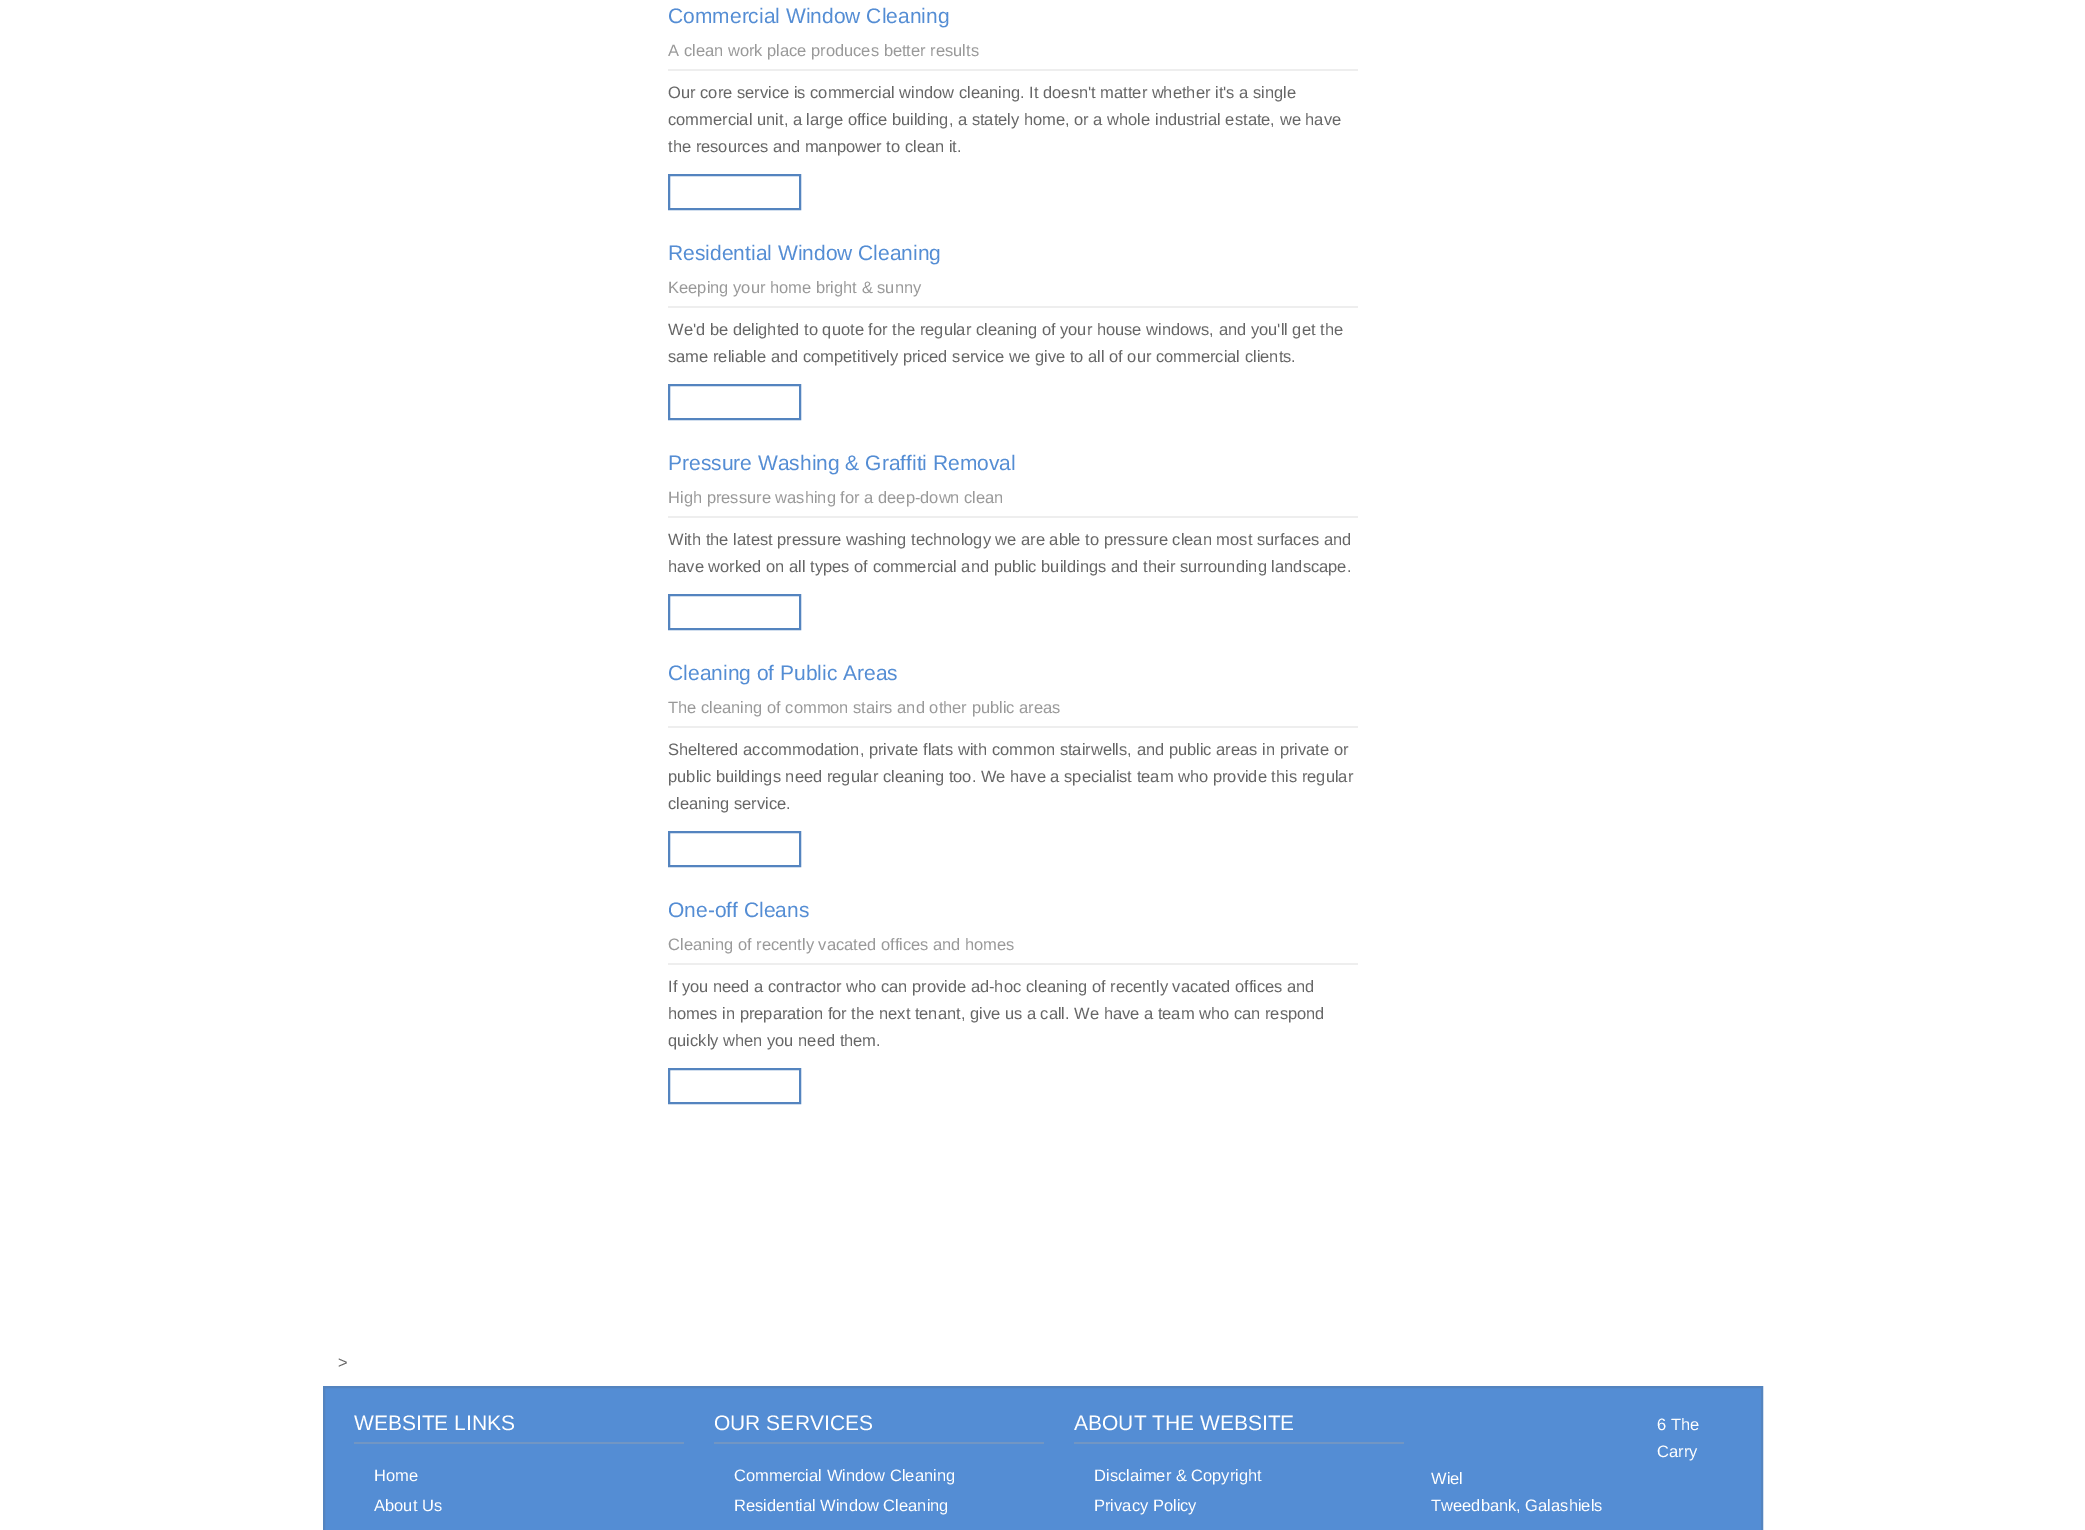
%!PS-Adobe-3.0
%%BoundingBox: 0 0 2085 1530
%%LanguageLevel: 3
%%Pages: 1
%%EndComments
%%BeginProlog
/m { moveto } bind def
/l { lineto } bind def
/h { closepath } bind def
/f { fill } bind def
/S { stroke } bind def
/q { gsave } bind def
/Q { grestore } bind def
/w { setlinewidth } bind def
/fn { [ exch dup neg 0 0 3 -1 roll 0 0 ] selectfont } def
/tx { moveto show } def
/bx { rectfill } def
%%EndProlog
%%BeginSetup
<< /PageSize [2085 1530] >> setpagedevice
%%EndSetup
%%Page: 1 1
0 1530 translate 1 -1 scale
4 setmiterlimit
1 setgray
0 0 2085 1530 bx
/LiberationSans-Regular 21 fn
0.329 0.553 0.831 setrgbcolor
(Commercial Window Cleaning) 668 23 tx
0.933 setgray
668 69 690 2 bx
/LiberationSans-Regular 16.5 fn
0.6 setgray
(A clean work place produces better results) 668 56 tx
0.4 setgray
(Our core service is commercial window cleaning. It doesn't matter whether it's a single) 668 98 tx
(commercial unit, a large office building, a stately home, or a whole industrial estate, we have) 668 125 tx
(the resources and manpower to clean it.) 668 152 tx
0.329 0.518 0.749 setrgbcolor
2 w
669 175 131 34 rectstroke
/LiberationSans-Regular 21 fn
0.329 0.553 0.831 setrgbcolor
(Residential Window Cleaning) 668 260 tx
0.933 setgray
668 306 690 2 bx
/LiberationSans-Regular 16.5 fn
0.6 setgray
(Keeping your home bright & sunny) 668 293 tx
0.4 setgray
(We'd be delighted to quote for the regular cleaning of your house windows, and you'll get the) 668 335 tx
(same reliable and competitively priced service we give to all of our commercial clients.) 668 362 tx
0.329 0.518 0.749 setrgbcolor
669 385 131 34 rectstroke
/LiberationSans-Regular 21 fn
0.329 0.553 0.831 setrgbcolor
(Pressure Washing & Graffiti Removal) 668 470 tx
0.933 setgray
668 516 690 2 bx
/LiberationSans-Regular 16.5 fn
0.6 setgray
(High pressure washing for a deep-down clean) 668 503 tx
0.4 setgray
(With the latest pressure washing technology we are able to pressure clean most surfaces and) 668 545 tx
(have worked on all types of commercial and public buildings and their surrounding landscape.) 668 572 tx
0.329 0.518 0.749 setrgbcolor
669 595 131 34 rectstroke
/LiberationSans-Regular 21 fn
0.329 0.553 0.831 setrgbcolor
(Cleaning of Public Areas) 668 680 tx
0.933 setgray
668 726 690 2 bx
/LiberationSans-Regular 16.5 fn
0.6 setgray
(The cleaning of common stairs and other public areas) 668 713 tx
0.4 setgray
(Sheltered accommodation, private flats with common stairwells, and public areas in private or) 668 755 tx
(public buildings need regular cleaning too. We have a specialist team who provide this regular) 668 782 tx
(cleaning service.) 668 809 tx
0.329 0.518 0.749 setrgbcolor
669 832 131 34 rectstroke
/LiberationSans-Regular 21 fn
0.329 0.553 0.831 setrgbcolor
(One-off Cleans) 668 917 tx
0.933 setgray
668 963 690 2 bx
/LiberationSans-Regular 16.5 fn
0.6 setgray
(Cleaning of recently vacated offices and homes) 668 950 tx
0.4 setgray
(If you need a contractor who can provide ad-hoc cleaning of recently vacated offices and) 668 992 tx
(homes in preparation for the next tenant, give us a call. We have a team who can respond) 668 1019 tx
(quickly when you need them.) 668 1046 tx
0.329 0.518 0.749 setrgbcolor
669 1069 131 34 rectstroke
0.4 setgray
(>) 338 1368 tx
0.329 0.553 0.831 setrgbcolor
324 1387 m 1762 1387 l 1762 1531 l 324 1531 l h q f Q
0.329 0.518 0.749 setrgbcolor
S
0.443 0.588 0.769 setrgbcolor
354 1442 330 2 bx
/LiberationSans-Regular 21 fn
1 setgray
(WEBSITE LINKS) 354 1430 tx
/LiberationSans-Regular 16.5 fn
(Home) 374 1481 tx
(About Us) 374 1511 tx
0.443 0.588 0.769 setrgbcolor
714 1442 330 2 bx
/LiberationSans-Regular 21 fn
1 setgray
(OUR SERVICES) 714 1430 tx
/LiberationSans-Regular 16.5 fn
(Commercial Window Cleaning) 734 1481 tx
(Residential Window Cleaning) 734 1511 tx
0.443 0.588 0.769 setrgbcolor
1074 1442 330 2 bx
/LiberationSans-Regular 21 fn
1 setgray
(ABOUT THE WEBSITE) 1074 1430 tx
/LiberationSans-Regular 16.5 fn
(Disclaimer & Copyright) 1094 1481 tx
(Privacy Policy) 1094 1511 tx
(6 The) 1657 1430 tx
(Carry) 1657 1457 tx
(Wiel) 1431 1484 tx
(Tweedbank, Galashiels) 1431 1511 tx
showpage
%%EOF
